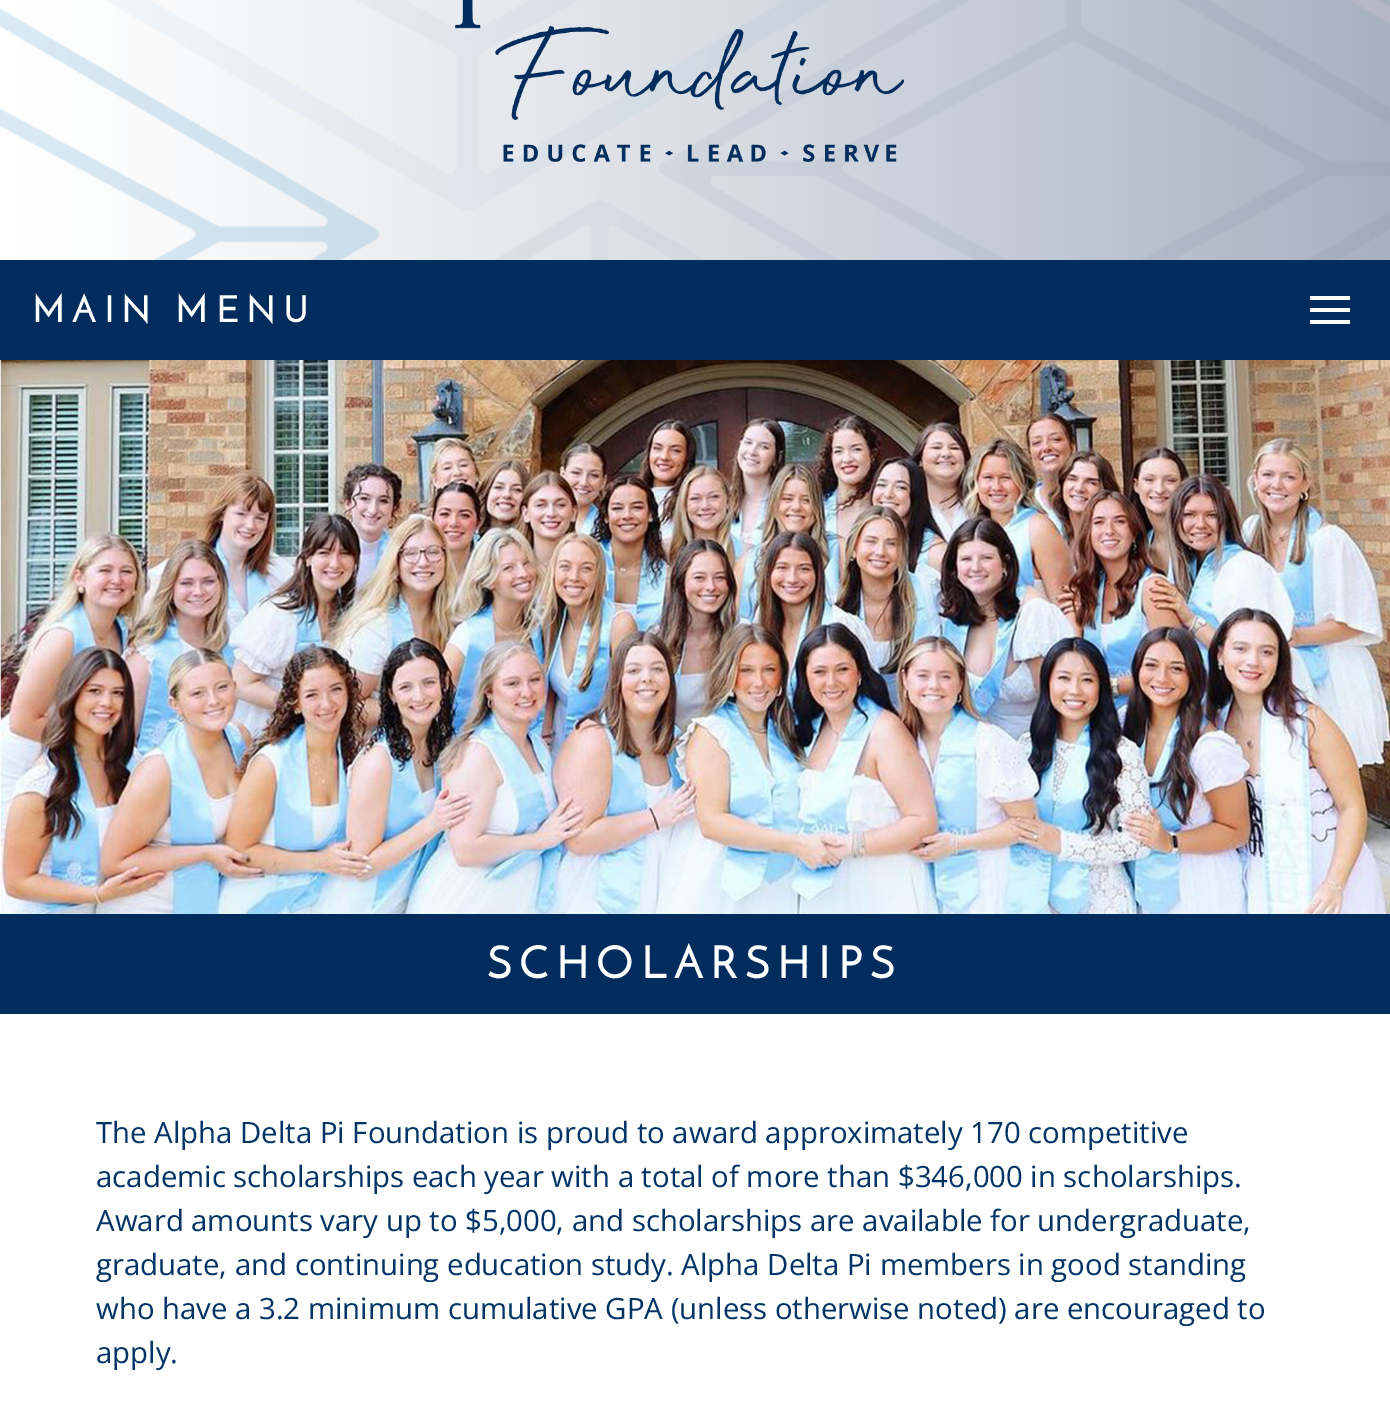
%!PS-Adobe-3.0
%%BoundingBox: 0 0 1390 1412
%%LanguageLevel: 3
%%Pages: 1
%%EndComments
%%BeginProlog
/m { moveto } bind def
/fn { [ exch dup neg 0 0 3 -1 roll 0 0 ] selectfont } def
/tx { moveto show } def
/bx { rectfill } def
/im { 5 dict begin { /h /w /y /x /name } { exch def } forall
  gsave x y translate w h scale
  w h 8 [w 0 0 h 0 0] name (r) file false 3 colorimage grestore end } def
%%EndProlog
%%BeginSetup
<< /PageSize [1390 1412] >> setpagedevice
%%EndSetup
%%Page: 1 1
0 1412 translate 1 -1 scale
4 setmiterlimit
1 setgray
0 0 1390 1412 bx
(image0.raw) 0 0 1390 260 im
(image1.raw) 455 0 450 162 im
0 0.176 0.365 setrgbcolor
0 260 1390 100 bx
/JosefinSans-Bold 36 fn
1 setgray
32 322 m 8 0 (MAIN MENU) ashow
1310 320 40 4 bx
1310 296 40 4 bx
1310 308 40 4 bx
(image2.raw) 0 360 1390 554 im
0 0.176 0.365 setrgbcolor
0 914 1390 100 bx
/JosefinSans-Bold 44 fn
1 setgray
487 978 m 8 0 (SCHOLARSHIPS) ashow
/OpenSans-Regular 29.35 fn
0 0.2 0.4 setrgbcolor
(The Alpha Delta Pi Foundation is proud to award approximately 170 competitive) 96 1143 tx
(academic scholarships each year with a total of more than $346,000 in scholarships.) 96 1187 tx
(Award amounts vary up to $5,000, and scholarships are available for undergraduate,) 96 1231 tx
(graduate, and continuing education study. Alpha Delta Pi members in good standing) 96 1275 tx
(who have a 3.2 minimum cumulative GPA \(unless otherwise noted\) are encouraged to) 96 1319 tx
(apply.) 96 1363 tx
showpage
%%EOF
